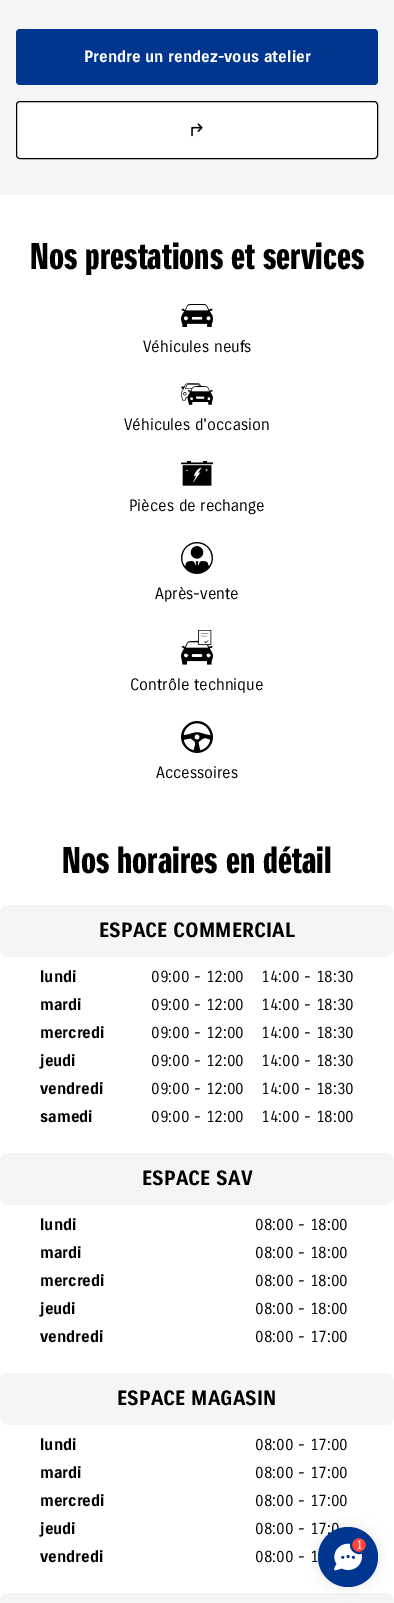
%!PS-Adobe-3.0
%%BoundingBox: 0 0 394 1603
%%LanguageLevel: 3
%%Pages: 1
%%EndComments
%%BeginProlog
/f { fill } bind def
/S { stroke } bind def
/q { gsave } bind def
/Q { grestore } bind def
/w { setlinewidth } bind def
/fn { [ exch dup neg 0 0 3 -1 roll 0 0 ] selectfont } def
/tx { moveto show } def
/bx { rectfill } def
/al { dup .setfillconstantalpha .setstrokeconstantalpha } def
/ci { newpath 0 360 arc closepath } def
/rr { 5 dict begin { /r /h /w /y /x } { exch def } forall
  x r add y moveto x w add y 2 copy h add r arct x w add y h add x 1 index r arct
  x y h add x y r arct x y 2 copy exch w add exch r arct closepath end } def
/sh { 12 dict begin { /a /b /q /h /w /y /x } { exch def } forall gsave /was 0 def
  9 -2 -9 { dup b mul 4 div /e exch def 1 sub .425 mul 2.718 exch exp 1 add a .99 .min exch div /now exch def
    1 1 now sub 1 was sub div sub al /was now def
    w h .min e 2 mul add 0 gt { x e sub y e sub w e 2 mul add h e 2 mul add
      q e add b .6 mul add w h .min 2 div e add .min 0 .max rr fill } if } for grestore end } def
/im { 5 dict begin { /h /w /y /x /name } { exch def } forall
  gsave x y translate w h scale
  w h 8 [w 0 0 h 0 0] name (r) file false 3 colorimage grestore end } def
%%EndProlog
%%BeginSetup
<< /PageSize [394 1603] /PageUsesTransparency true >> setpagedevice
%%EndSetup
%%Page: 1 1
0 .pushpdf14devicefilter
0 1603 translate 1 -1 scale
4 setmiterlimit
1 setgray
0 0 394 1603 bx
0.957 0.961 0.965 setrgbcolor
0 0 394 195 bx
0 0.212 0.561 setrgbcolor
16 29 362 56 4 rr f
/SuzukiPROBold-Bold 16 fn
1 setgray
(Prendre un rendez-vous atelier) 84 62 tx
16.5 101.5 361 57 3.5 rr q f Q
0 setgray
S
(image0.raw) 191 123 12 14 im
/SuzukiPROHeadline-Bold 36 fn
(Nos prestations et services) 30 269 tx
(image1.raw) 181 304 32 23 im
/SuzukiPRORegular-Regular 16 fn
(Véhicules neufs) 143 352 tx
(image2.raw) 181 383 32 22 im
(Véhicules d'occasion) 124 430 tx
(image3.raw) 181 461 32 25 im
/LiberationSerif-Bold 7 fn
1 setgray
(-) 186 472 tx
/LiberationSerif-Bold 6 fn
(+) 205 472 tx
/SuzukiPRORegular-Regular 16 fn
0 setgray
(Pièces de rechange) 129 511 tx
(image4.raw) 181 542 32 32 im
(Après-vente) 155 599 tx
(image5.raw) 181 630 32 35 im
(Contrôle technique) 130 690 tx
(image6.raw) 181 721 32 32 im
(Accessoires) 156 778 tx
/SuzukiPROHeadline-Bold 36 fn
(Nos horaires en détail) 62 873 tx
0.957 0.961 0.965 setrgbcolor
0 905 394 52 8 rr f
/SuzukiPROBold-Bold 20 fn
0 setgray
(ESPACE COMMERCIAL) 99 937 tx
/SuzukiPROBold-Bold 16 fn
(lundi) 40 982 tx
/SuzukiPRORegular-Regular 16 fn
(09:00 - 12:00) 151 982 tx
(14:00 - 18:30) 261 982 tx
/SuzukiPROBold-Bold 16 fn
(mardi) 40 1010 tx
/SuzukiPRORegular-Regular 16 fn
(09:00 - 12:00) 151 1010 tx
(14:00 - 18:30) 261 1010 tx
/SuzukiPROBold-Bold 16 fn
(mercredi) 40 1038 tx
/SuzukiPRORegular-Regular 16 fn
(09:00 - 12:00) 151 1038 tx
(14:00 - 18:30) 261 1038 tx
/SuzukiPROBold-Bold 16 fn
(jeudi) 40 1066 tx
/SuzukiPRORegular-Regular 16 fn
(09:00 - 12:00) 151 1066 tx
(14:00 - 18:30) 261 1066 tx
/SuzukiPROBold-Bold 16 fn
(vendredi) 40 1094 tx
/SuzukiPRORegular-Regular 16 fn
(09:00 - 12:00) 151 1094 tx
(14:00 - 18:30) 261 1094 tx
/SuzukiPROBold-Bold 16 fn
(samedi) 40 1122 tx
/SuzukiPRORegular-Regular 16 fn
(09:00 - 12:00) 151 1122 tx
(14:00 - 18:00) 261 1122 tx
0.957 0.961 0.965 setrgbcolor
0 1153 394 52 8 rr f
/SuzukiPROBold-Bold 20 fn
0 setgray
(ESPACE SAV) 142 1185 tx
/SuzukiPROBold-Bold 16 fn
(lundi) 40 1230 tx
/SuzukiPRORegular-Regular 16 fn
(08:00 - 18:00) 255 1230 tx
/SuzukiPROBold-Bold 16 fn
(mardi) 40 1258 tx
/SuzukiPRORegular-Regular 16 fn
(08:00 - 18:00) 255 1258 tx
/SuzukiPROBold-Bold 16 fn
(mercredi) 40 1286 tx
/SuzukiPRORegular-Regular 16 fn
(08:00 - 18:00) 255 1286 tx
/SuzukiPROBold-Bold 16 fn
(jeudi) 40 1314 tx
/SuzukiPRORegular-Regular 16 fn
(08:00 - 18:00) 255 1314 tx
/SuzukiPROBold-Bold 16 fn
(vendredi) 40 1342 tx
/SuzukiPRORegular-Regular 16 fn
(08:00 - 17:00) 255 1342 tx
0.957 0.961 0.965 setrgbcolor
0 1373 394 52 8 rr f
/SuzukiPROBold-Bold 20 fn
0 setgray
(ESPACE MAGASIN) 117 1405 tx
/SuzukiPROBold-Bold 16 fn
(lundi) 40 1450 tx
/SuzukiPRORegular-Regular 16 fn
(08:00 - 17:00) 255 1450 tx
/SuzukiPROBold-Bold 16 fn
(mardi) 40 1478 tx
/SuzukiPRORegular-Regular 16 fn
(08:00 - 17:00) 255 1478 tx
/SuzukiPROBold-Bold 16 fn
(mercredi) 40 1506 tx
/SuzukiPRORegular-Regular 16 fn
(08:00 - 17:00) 255 1506 tx
/SuzukiPROBold-Bold 16 fn
(jeudi) 40 1534 tx
/SuzukiPRORegular-Regular 16 fn
(08:00 - 17:0) 255 1534 tx
/SuzukiPROBold-Bold 16 fn
(vendredi) 40 1562 tx
/SuzukiPRORegular-Regular 16 fn
(08:00 - 1) 255 1562 tx
0.957 0.961 0.965 setrgbcolor
0 1593 394 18 8 rr f
0 setgray
318 1527 60 60 30 6 0.1 sh
0 0.212 0.561 setrgbcolor
348 1557 30 ci f
(image7.raw) 334 1543 28 28 im
1 0.267 0.227 setrgbcolor
359 1545 8 ci q f Q
0 0.212 0.561 setrgbcolor
2 w
S
/SuzukiPRORegular-Regular 12 fn
1 setgray
(1) 356 1549 tx
.poppdf14devicefilter showpage
%%EOF
